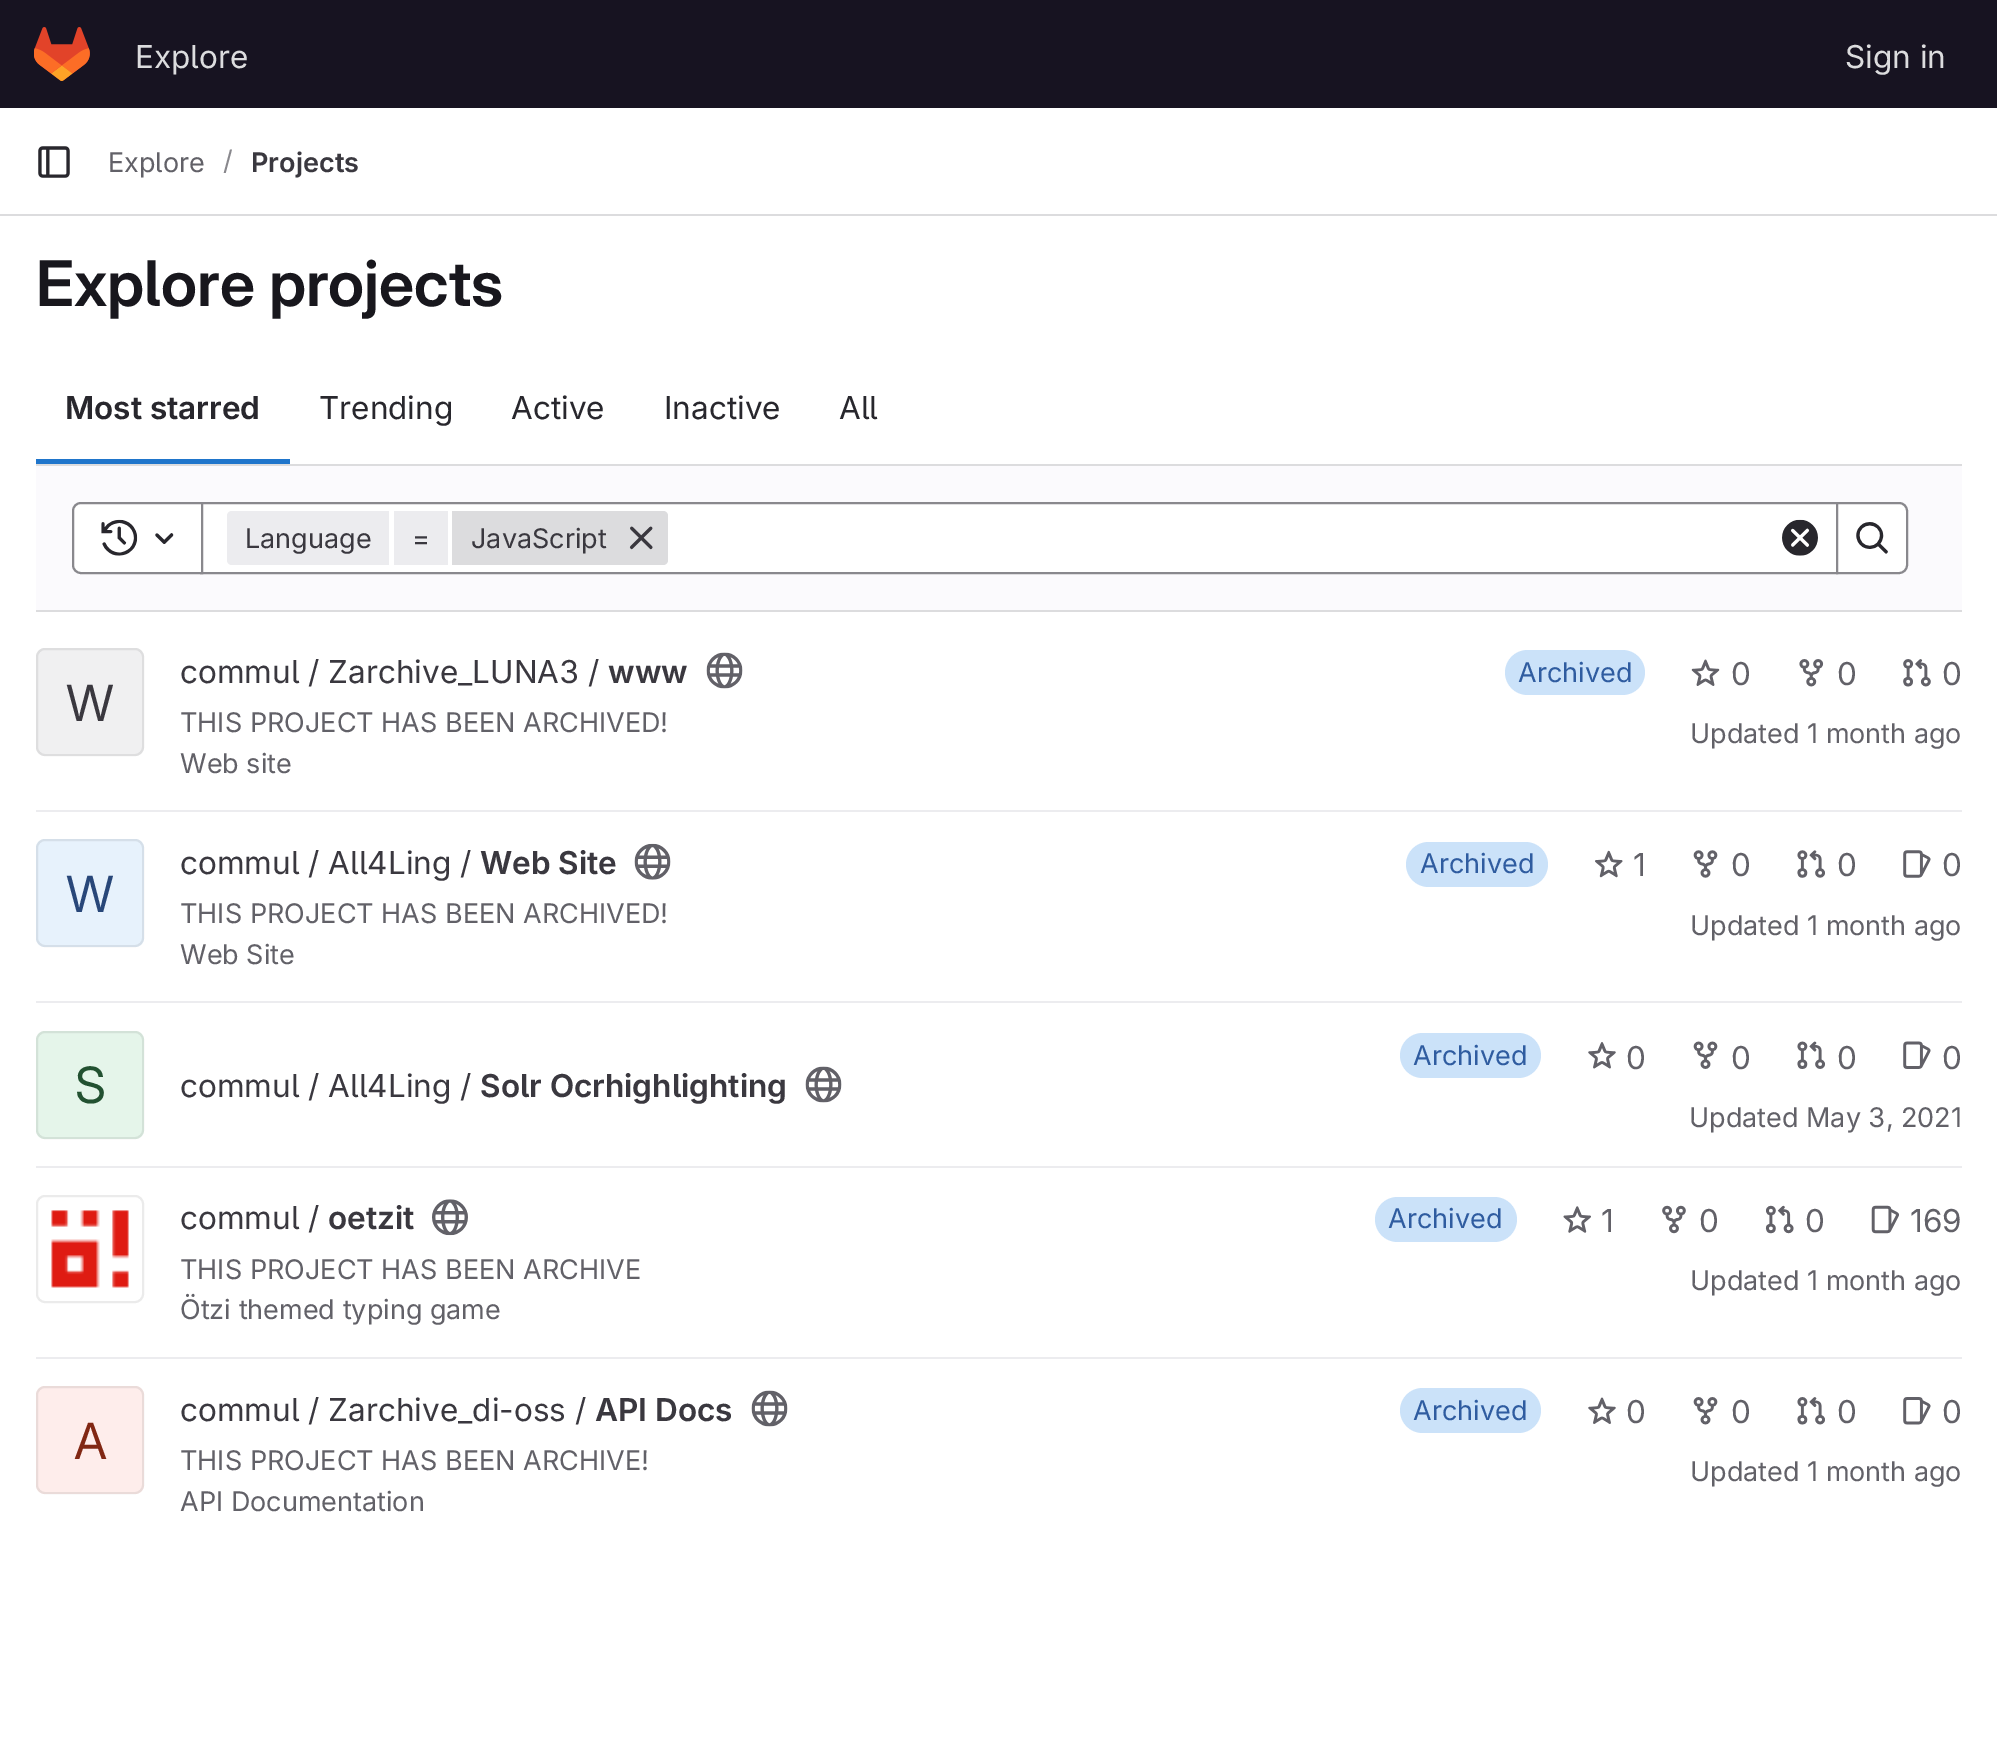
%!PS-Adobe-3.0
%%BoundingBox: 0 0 1997 1745
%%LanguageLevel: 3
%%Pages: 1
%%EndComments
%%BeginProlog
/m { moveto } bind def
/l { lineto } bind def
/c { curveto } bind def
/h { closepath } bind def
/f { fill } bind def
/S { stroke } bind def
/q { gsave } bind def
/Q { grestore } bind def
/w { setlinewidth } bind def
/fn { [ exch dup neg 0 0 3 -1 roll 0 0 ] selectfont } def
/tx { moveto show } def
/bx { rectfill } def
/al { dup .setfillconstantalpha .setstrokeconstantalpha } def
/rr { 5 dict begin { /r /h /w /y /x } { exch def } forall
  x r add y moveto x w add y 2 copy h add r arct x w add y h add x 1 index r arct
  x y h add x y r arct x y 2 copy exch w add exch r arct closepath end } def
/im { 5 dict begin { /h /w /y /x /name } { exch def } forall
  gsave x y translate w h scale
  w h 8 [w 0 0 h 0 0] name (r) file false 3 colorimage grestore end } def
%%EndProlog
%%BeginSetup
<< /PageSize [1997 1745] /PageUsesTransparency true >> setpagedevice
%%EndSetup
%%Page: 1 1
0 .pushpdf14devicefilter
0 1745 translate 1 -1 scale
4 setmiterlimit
1 setgray
0 0 1997 1745 bx
0.09 0.075 0.129 setrgbcolor
0 0 1997 108 bx
(image0.raw) 34 27 56 54 im
/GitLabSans-Regular 31.5 fn
0.863 0.863 0.871 setrgbcolor
(Explore) 135 68 tx
(Sign in) 1845 68 tx
0 214 1997 2 bx
(image1.raw) 38 146 32 32 im
/GitLabSans-Regular 27 fn
0.384 0.38 0.408 setrgbcolor
(Explore) 108 172 tx
0.537 0.533 0.553 setrgbcolor
(/) 223 170 tx
/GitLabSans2-SemiBold 27 fn
0.227 0.22 0.247 setrgbcolor
(Projects) 251 172 tx
/GitLabSans-SemiBold 63 fn
0.094 0.09 0.114 setrgbcolor
(Explore projects) 36 306 tx
/GitLabSans2-SemiBold 31.5 fn
0.157 0.153 0.176 setrgbcolor
(Most starred) 65 419 tx
0.122 0.459 0.796 setrgbcolor
36 459 254 5 bx
/GitLabSans-Regular 31.5 fn
0.157 0.153 0.176 setrgbcolor
(Trending) 319 419 tx
(Active) 511 419 tx
(Inactive) 664 419 tx
(All) 839 419 tx
0.984 0.98 0.992 setrgbcolor
36 466 1926 144 bx
0.863 0.863 0.871 setrgbcolor
36 464 1926 2 bx
36 610 1926 2 bx
1 setgray
203 504 1633 68 bx
0.537 0.533 0.553 setrgbcolor
2 w
201 503 1636 70 rectstroke
1 setgray
81 503 m 202 503 l 202 573 l 81 573 l 76.5 573 73 569.5 73 565 c 73 511 l 73 506.5 76.5 503 81 503 c h q f Q
0.537 0.533 0.553 setrgbcolor
S
(image2.raw) 101 519 37 37 im
(image3.raw) 155 533 19 11 im
0.925 0.925 0.937 setrgbcolor
232 511 m 389 511 l 389 565 l 232 565 l 229 565 227 563 227 560 c 227 516 l 227 513 229 511 232 511 c h f
/GitLabSans-Regular 27 fn
0.227 0.22 0.247 setrgbcolor
(Language) 245 548 tx
0.925 0.925 0.937 setrgbcolor
394 511 54 54 bx
0.227 0.22 0.247 setrgbcolor
(=) 412 548 tx
0.863 0.863 0.871 setrgbcolor
452 511 m 663 511 l 666 511 668 513 668 516 c 668 560 l 668 563 666 565 663 565 c 452 565 l h f
0.227 0.22 0.247 setrgbcolor
(JavaScript) 471 548 tx
(image4.raw) 629 526 24 24 im
(image5.raw) 1782 519 36 37 im
1 setgray
1837 503 m 1899 503 l 1903.5 503 1907 506.5 1907 511 c 1907 565 l 1907 569.5 1903.5 573 1899 573 c 1837 573 l h q f Q
0.537 0.533 0.553 setrgbcolor
S
(image6.raw) 1856 522 32 32 im
0.925 0.925 0.937 setrgbcolor
36 810 1926 2 bx
0.941 0.941 0.945 setrgbcolor
36 648 108 108 9 rr f
0.08 al
0.02 0.02 0.024 setrgbcolor
37 649 106 106 8 rr S
/GitLabSans2-Regular 50 fn
1 al
0.227 0.22 0.247 setrgbcolor
(W) 66 721 tx
/GitLabSans-Regular 31.5 fn
(commul / Zarchive_LUNA3 /) 180 683 tx
/GitLabSans2-SemiBold 31.5 fn
(www) 608 683 tx
(image7.raw) 706 652 37 37 im
/GitLabSans-Regular 27 fn
0.384 0.38 0.408 setrgbcolor
(THIS PROJECT HAS BEEN ARCHIVED!) 180 732 tx
(Web site) 180 773 tx
0.796 0.886 0.976 setrgbcolor
1505 650 140 45 22.5 rr f
0.184 0.361 0.627 setrgbcolor
(Archived) 1518 682 tx
(image8.raw) 1691 659 29 27 im
/GitLabSans-Regular 31.5 fn
0.384 0.38 0.408 setrgbcolor
(0) 1731 685 tx
(image9.raw) 1799 659 25 28 im
(0) 1837 685 tx
(image10.raw) 1903 659 28 28 im
(0) 1942 685 tx
/GitLabSans-Regular 27 fn
(Updated 1 month ago) 1690 743 tx
0.925 0.925 0.937 setrgbcolor
36 1001 1926 2 bx
0.906 0.949 0.988 setrgbcolor
36 839 108 108 9 rr f
0.08 al
0.02 0.02 0.024 setrgbcolor
37 840 106 106 8 rr S
/GitLabSans2-Regular 50 fn
1 al
0.157 0.278 0.475 setrgbcolor
(W) 66 912 tx
/GitLabSans-Regular 31.5 fn
0.227 0.22 0.247 setrgbcolor
(commul / All4Ling /) 180 874 tx
/GitLabSans2-SemiBold 31.5 fn
(Web Site) 480 874 tx
(image11.raw) 634 843 37 37 im
/GitLabSans-Regular 27 fn
0.384 0.38 0.408 setrgbcolor
(THIS PROJECT HAS BEEN ARCHIVED!) 180 923 tx
(Web Site) 180 964 tx
0.796 0.886 0.976 setrgbcolor
1406 842 142 45 22.5 rr f
0.184 0.361 0.627 setrgbcolor
(Archived) 1420 873 tx
(image12.raw) 1595 850 28 28 im
/GitLabSans-Regular 31.5 fn
0.384 0.38 0.408 setrgbcolor
(1) 1633 876 tx
(image13.raw) 1693 850 25 28 im
(0) 1731 876 tx
(image14.raw) 1797 850 28 28 im
(0) 1837 876 tx
(image15.raw) 1903 850 28 28 im
(0) 1942 876 tx
/GitLabSans-Regular 27 fn
(Updated 1 month ago) 1690 935 tx
0.925 0.925 0.937 setrgbcolor
36 1166 1926 2 bx
0.898 0.961 0.918 setrgbcolor
36 1031 108 108 9 rr f
0.08 al
0.02 0.02 0.024 setrgbcolor
37 1032 106 106 8 rr S
/GitLabSans2-Regular 50 fn
1 al
0.133 0.318 0.192 setrgbcolor
(S) 75 1103 tx
/GitLabSans-Regular 31.5 fn
0.227 0.22 0.247 setrgbcolor
(commul / All4Ling /) 180 1097 tx
/GitLabSans2-SemiBold 31.5 fn
(Solr Ocrhighlighting) 480 1097 tx
(image7.raw) 805 1066 37 37 im
0.796 0.886 0.976 setrgbcolor
1400 1033 141 45 22.5 rr f
/GitLabSans-Regular 27 fn
0.184 0.361 0.627 setrgbcolor
(Archived) 1413 1065 tx
(image16.raw) 1588 1042 28 27 im
/GitLabSans-Regular 31.5 fn
0.384 0.38 0.408 setrgbcolor
(0) 1626 1069 tx
(image17.raw) 1693 1041 25 28 im
(0) 1731 1069 tx
(image18.raw) 1797 1041 28 28 im
(0) 1837 1069 tx
(image19.raw) 1903 1041 28 28 im
(0) 1942 1069 tx
/GitLabSans-Regular 27 fn
(Updated May 3, 2021) 1689 1127 tx
0.925 0.925 0.937 setrgbcolor
36 1357 1926 2 bx
(image20.raw) 51 1210 78 78 im
0.922 setgray
37 1196 106 106 8 rr S
/GitLabSans-Regular 31.5 fn
0.227 0.22 0.247 setrgbcolor
(commul /) 180 1229 tx
/GitLabSans2-SemiBold 31.5 fn
(oetzit) 328 1229 tx
(image21.raw) 432 1199 36 37 im
/GitLabSans-Regular 27 fn
0.384 0.38 0.408 setrgbcolor
(THIS PROJECT HAS BEEN ARCHIVE) 180 1279 tx
(Ötzi themed typing game) 180 1319 tx
0.796 0.886 0.976 setrgbcolor
1375 1197 142 45 22.5 rr f
0.184 0.361 0.627 setrgbcolor
(Archived) 1388 1228 tx
(image22.raw) 1563 1206 28 27 im
/GitLabSans-Regular 31.5 fn
0.384 0.38 0.408 setrgbcolor
(1) 1601 1232 tx
(image23.raw) 1662 1205 24 29 im
(0) 1699 1232 tx
(image24.raw) 1765 1205 29 29 im
(0) 1805 1232 tx
(image25.raw) 1871 1205 28 29 im
(169) 1910 1232 tx
/GitLabSans-Regular 27 fn
(Updated 1 month ago) 1690 1290 tx
0.996 0.929 0.922 setrgbcolor
36 1386 108 108 9 rr f
0.08 al
0.02 0.02 0.024 setrgbcolor
37 1387 106 106 8 rr S
/GitLabSans2-Regular 50 fn
1 al
0.506 0.153 0.075 setrgbcolor
(A) 74 1459 tx
/GitLabSans-Regular 31.5 fn
0.227 0.22 0.247 setrgbcolor
(commul / Zarchive_di-oss /) 180 1421 tx
/GitLabSans2-SemiBold 31.5 fn
(API Docs) 595 1421 tx
(image26.raw) 751 1390 37 37 im
/GitLabSans-Regular 27 fn
0.384 0.38 0.408 setrgbcolor
(THIS PROJECT HAS BEEN ARCHIVE!) 180 1470 tx
(API Documentation) 180 1511 tx
0.796 0.886 0.976 setrgbcolor
1400 1388 141 45 22.5 rr f
0.184 0.361 0.627 setrgbcolor
(Archived) 1413 1420 tx
(image27.raw) 1588 1397 28 27 im
/GitLabSans-Regular 31.5 fn
0.384 0.38 0.408 setrgbcolor
(0) 1626 1423 tx
(image28.raw) 1693 1397 25 28 im
(0) 1731 1423 tx
(image29.raw) 1797 1397 28 28 im
(0) 1837 1423 tx
(image30.raw) 1903 1397 28 28 im
(0) 1942 1423 tx
/GitLabSans-Regular 27 fn
(Updated 1 month ago) 1690 1481 tx
.poppdf14devicefilter showpage
%%EOF
